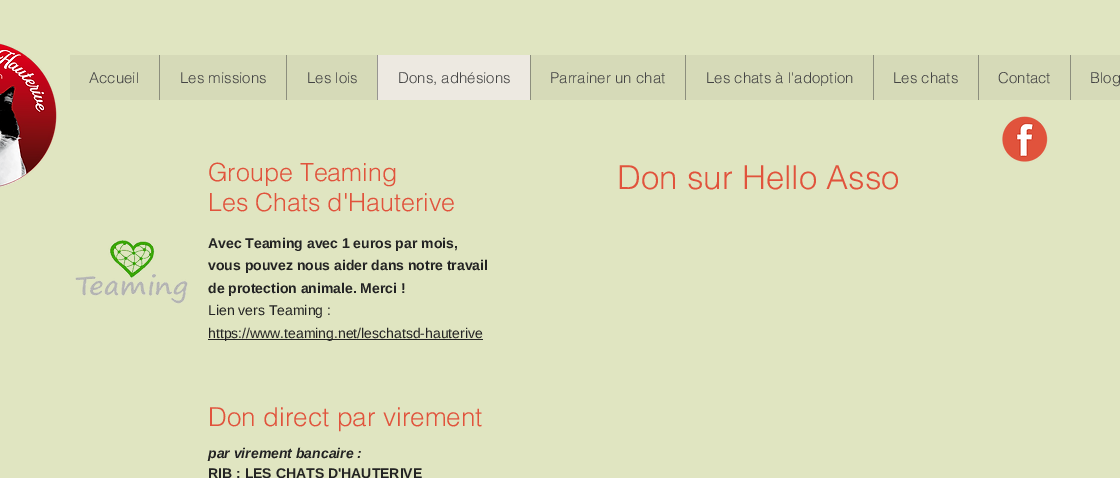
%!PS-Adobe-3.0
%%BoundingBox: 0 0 1120 478
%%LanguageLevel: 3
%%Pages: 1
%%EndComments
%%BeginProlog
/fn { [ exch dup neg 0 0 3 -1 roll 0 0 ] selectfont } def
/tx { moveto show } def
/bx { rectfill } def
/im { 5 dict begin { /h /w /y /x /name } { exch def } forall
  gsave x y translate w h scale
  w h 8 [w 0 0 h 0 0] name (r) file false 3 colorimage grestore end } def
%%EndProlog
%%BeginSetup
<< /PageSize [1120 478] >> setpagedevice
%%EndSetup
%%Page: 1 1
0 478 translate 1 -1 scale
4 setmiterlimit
0.878 0.898 0.757 setrgbcolor
0 0 1120 478 bx
(image0.raw) 0 43 57 144 im
0.839 0.855 0.722 setrgbcolor
70 55 1050 45 bx
/helvetica-Light 15 fn
0.267 setgray
(Accueil) 89 83 tx
0.549 0.557 0.49 setrgbcolor
159 55 1 45 bx
0.267 setgray
(Les missions) 180 83 tx
0.549 0.557 0.49 setrgbcolor
286 55 1 45 bx
0.267 setgray
(Les lois) 307 83 tx
0.929 0.914 0.882 setrgbcolor
378 55 152 45 bx
0.592 0.584 0.569 setrgbcolor
377 55 1 45 bx
0.267 setgray
(Dons, adhésions) 398 83 tx
0.549 0.557 0.49 setrgbcolor
530 55 1 45 bx
0.267 setgray
(Parrainer un chat) 550 83 tx
0.549 0.557 0.49 setrgbcolor
685 55 1 45 bx
0.267 setgray
(Les chats à l'adoption) 706 83 tx
0.549 0.557 0.49 setrgbcolor
873 55 1 45 bx
0.267 setgray
(Les chats) 893 83 tx
0.549 0.557 0.49 setrgbcolor
978 55 1 45 bx
0.267 setgray
(Contact) 998 83 tx
0.549 0.557 0.49 setrgbcolor
1070 55 1 45 bx
0.267 setgray
(Blog) 1090 83 tx
(image1.raw) 1002 116 46 46 im
/helvetica-Light 25 fn
0.882 0.325 0.235 setrgbcolor
(Groupe Teaming) 208 181 tx
(Les Chats d'Hauterive) 208 211 tx
/helvetica-Light 33 fn
(Don sur Hello Asso) 617 189 tx
(image2.raw) 75 240 113 64 im
/LiberationSans-Bold 14 fn
0.137 setgray
(Avec Teaming avec 1 euros par mois,) 208 248 tx
(vous pouvez nous aider dans notre travail) 208 270 tx
(de protection animale. Merci !) 208 293 tx
/LiberationSans-Regular 14 fn
(Lien vers Teaming :) 208 315 tx
208 339 275 1 bx
(https://www.teaming.net/leschatsd-hauterive) 208 338 tx
/helvetica-Light 26 fn
0.882 0.325 0.235 setrgbcolor
(Don direct par virement) 208 426 tx
/LiberationSans-BoldItalic 14 fn
0.137 setgray
(par virement bancaire :) 208 458 tx
/LiberationSans-Bold 14 fn
(RIB : LES CHATS D'HAUTERIVE) 208 478 tx
showpage
%%EOF
